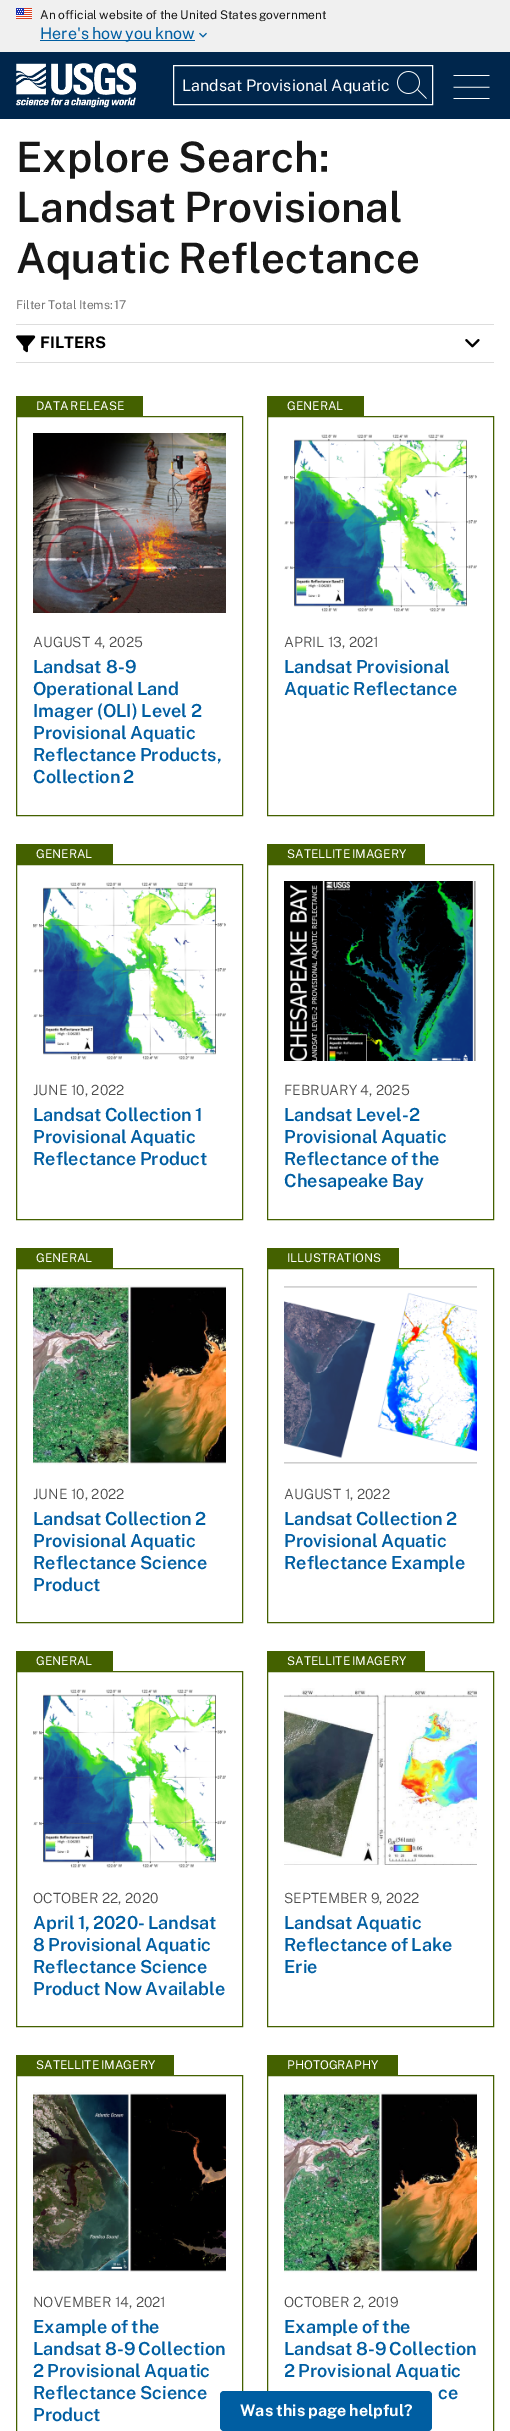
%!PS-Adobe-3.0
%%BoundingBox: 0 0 510 2431
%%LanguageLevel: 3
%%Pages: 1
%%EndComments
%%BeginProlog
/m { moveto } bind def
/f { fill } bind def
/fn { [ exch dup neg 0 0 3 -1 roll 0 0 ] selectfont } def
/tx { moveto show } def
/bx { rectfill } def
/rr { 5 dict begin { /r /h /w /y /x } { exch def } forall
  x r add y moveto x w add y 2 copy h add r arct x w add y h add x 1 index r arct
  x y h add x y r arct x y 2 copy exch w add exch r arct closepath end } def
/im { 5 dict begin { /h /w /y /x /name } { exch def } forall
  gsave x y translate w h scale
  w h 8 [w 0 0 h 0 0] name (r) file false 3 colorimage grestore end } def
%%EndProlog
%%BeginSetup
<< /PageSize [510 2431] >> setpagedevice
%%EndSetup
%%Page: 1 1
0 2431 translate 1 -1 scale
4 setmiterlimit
1 setgray
0 0 510 2431 bx
0.941 setgray
0 0 510 52 bx
(image0.raw) 16 8 16 11 im
/PublicSans-Regular 12 fn
0.09 setgray
40 19 m -0.5 0 32 (An official website of the United States government) widthshow
0 0.369 0.635 setrgbcolor
40 40 155 1 bx
/PublicSans-Regular 16 fn
40 39 m -1 0 32 (Here's how you know) widthshow
(image1.raw) 199 32 8 6 im
0 0.149 0.298 setrgbcolor
0 52 510 67 bx
(image2.raw) 16 63 120 45 im
1 setgray
173.5 65.5 259 39 rectstroke
(Landsat Provisional Aquatic) 182 91 tx
(image3.raw) 397 71 30 28 im
(image4.raw) 453 75 37 24 im
/PublicSans-SemiBold 42 fn
0.09 setgray
16 172 m -2 0 32 (Explore Search:) widthshow
16 222 m -2 0 32 (Landsat Provisional) widthshow
16 273 m -2 0 32 (Aquatic Reflectance) widthshow
/PublicSans-Regular 12 fn
0.459 setgray
16 309 m -1 0 32 (Filter Total Items: 17) widthshow
0.867 setgray
16 324 478 1 bx
16 362 478 1 bx
(image5.raw) 16 335 20 18 im
/PublicSans-Bold 16 fn
0 setgray
(FILTERS) 40 348 tx
(image6.raw) 465 339 15 9 im
0.267 0.38 0 setrgbcolor
16 396 127 20 bx
/PublicSans-Regular 12 fn
1 setgray
36 410 m -1 0 32 (DATA RELEASE) widthshow
0.267 0.38 0 setrgbcolor
16.5 416.5 226 399 rectstroke
(image7.raw) 33 433 193 180 im
/PublicSans-Light 14 fn
0.302 setgray
(AUGUST 4, 2025) 33 647 tx
/PublicSans-SemiBold 18 fn
0 0.369 0.635 setrgbcolor
(Landsat 8-9) 33 673 tx
33 695 m -1 0 32 (Operational Land) widthshow
33 717 m -0.5 0 32 (Imager \(OLI\) Level 2) widthshow
33 739 m -1 0 32 (Provisional Aquatic) widthshow
33 761 m -1 0 32 (Reflectance Products,) widthshow
33 783 m -1 0 32 (Collection 2) widthshow
0.267 0.38 0 setrgbcolor
267 396 97 20 bx
/PublicSans-Regular 12 fn
1 setgray
(GENERAL) 287 410 tx
0.267 0.38 0 setrgbcolor
267.5 416.5 226 399 rectstroke
(image8.raw) 284 434 193 178 im
/PublicSans-Light 14 fn
0.302 setgray
(APRIL 13, 2021) 284 647 tx
/PublicSans-SemiBold 18 fn
0 0.369 0.635 setrgbcolor
284 673 m -1 0 32 (Landsat Provisional) widthshow
284 695 m -1 0 32 (Aquatic Reflectance) widthshow
0.267 0.38 0 setrgbcolor
16 844 97 20 bx
/PublicSans-Regular 12 fn
1 setgray
(GENERAL) 36 858 tx
0.267 0.38 0 setrgbcolor
16.5 864.5 226 355 rectstroke
(image9.raw) 33 882 193 178 im
/PublicSans-Light 14 fn
0.302 setgray
(JUNE 10, 2022) 33 1095 tx
/PublicSans-SemiBold 18 fn
0 0.369 0.635 setrgbcolor
33 1121 m -1 0 32 (Landsat Collection 1) widthshow
33 1143 m -1 0 32 (Provisional Aquatic) widthshow
33 1165 m -1 0 32 (Reflectance Product) widthshow
0.267 0.38 0 setrgbcolor
267 844 158 20 bx
/PublicSans-Regular 12 fn
1 setgray
287 858 m -1 0 32 (SATELLITE IMAGERY) widthshow
0.267 0.38 0 setrgbcolor
267.5 864.5 226 355 rectstroke
(image10.raw) 284 881 192 180 im
/PublicSans-Light 14 fn
0.302 setgray
(FEBRUARY 4, 2025) 284 1095 tx
/PublicSans-SemiBold 18 fn
0 0.369 0.635 setrgbcolor
284 1121 m -1 0 32 (Landsat Level-2) widthshow
284 1143 m -1 0 32 (Provisional Aquatic) widthshow
284 1165 m -1 0 32 (Reflectance of the) widthshow
284 1187 m -1 0 32 (Chesapeake Bay) widthshow
0.267 0.38 0 setrgbcolor
16 1248 97 20 bx
/PublicSans-Regular 12 fn
1 setgray
(GENERAL) 36 1262 tx
0.267 0.38 0 setrgbcolor
16.5 1268.5 226 354 rectstroke
(image11.raw) 33 1285 193 180 im
/PublicSans-Light 14 fn
0.302 setgray
(JUNE 10, 2022) 33 1499 tx
/PublicSans-SemiBold 18 fn
0 0.369 0.635 setrgbcolor
33 1525 m -1 0 32 (Landsat Collection 2) widthshow
33 1547 m -1 0 32 (Provisional Aquatic) widthshow
33 1569 m -1 0 32 (Reflectance Science) widthshow
(Product) 33 1591 tx
0.267 0.38 0 setrgbcolor
267 1248 132 20 bx
/PublicSans-Regular 12 fn
1 setgray
(ILLUSTRATIONS) 287 1262 tx
0.267 0.38 0 setrgbcolor
267.5 1268.5 226 354 rectstroke
(image12.raw) 284 1286 193 178 im
/PublicSans-Light 14 fn
0.302 setgray
(AUGUST 1, 2022) 284 1499 tx
/PublicSans-SemiBold 18 fn
0 0.369 0.635 setrgbcolor
284 1525 m -1 0 32 (Landsat Collection 2) widthshow
284 1547 m -1 0 32 (Provisional Aquatic) widthshow
284 1569 m -1 0 32 (Reflectance Example) widthshow
0.267 0.38 0 setrgbcolor
16 1651 97 20 bx
/PublicSans-Regular 12 fn
1 setgray
(GENERAL) 36 1665 tx
0.267 0.38 0 setrgbcolor
16.5 1671.5 226 355 rectstroke
(image13.raw) 33 1689 193 179 im
/PublicSans-Light 14 fn
0.302 setgray
(OCTOBER 22, 2020) 33 1903 tx
/PublicSans-SemiBold 18 fn
0 0.369 0.635 setrgbcolor
33 1929 m -1 0 32 (April 1, 2020- Landsat) widthshow
33 1951 m -1 0 32 (8 Provisional Aquatic) widthshow
33 1973 m -1 0 32 (Reflectance Science) widthshow
33 1995 m -1 0 32 (Product Now Available) widthshow
0.267 0.38 0 setrgbcolor
267 1651 158 20 bx
/PublicSans-Regular 12 fn
1 setgray
287 1665 m -1 0 32 (SATELLITE IMAGERY) widthshow
0.267 0.38 0 setrgbcolor
267.5 1671.5 226 355 rectstroke
(image14.raw) 284 1688 193 177 im
/PublicSans-Light 14 fn
0.302 setgray
(SEPTEMBER 9, 2022) 284 1903 tx
/PublicSans-SemiBold 18 fn
0 0.369 0.635 setrgbcolor
284 1929 m -1 0 32 (Landsat Aquatic) widthshow
284 1951 m -1 0 32 (Reflectance of Lake) widthshow
(Erie) 284 1973 tx
0.267 0.38 0 setrgbcolor
16 2055 158 20 bx
/PublicSans-Regular 12 fn
1 setgray
36 2069 m -1 0 32 (SATELLITE IMAGERY) widthshow
0.267 0.38 0 setrgbcolor
16.5 2075.5 226 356 rectstroke
(image15.raw) 33 2092 193 180 im
/PublicSans-Light 14 fn
0.302 setgray
(NOVEMBER 14, 2021) 33 2307 tx
/PublicSans-SemiBold 18 fn
0 0.369 0.635 setrgbcolor
33 2333 m -1 0 32 (Example of the) widthshow
33 2355 m -1 0 32 (Landsat 8-9 Collection) widthshow
33 2377 m -1 0 32 (2 Provisional Aquatic) widthshow
33 2399 m -1 0 32 (Reflectance Science) widthshow
(Product) 33 2421 tx
0.267 0.38 0 setrgbcolor
267 2055 131 20 bx
/PublicSans-Regular 12 fn
1 setgray
(PHOTOGRAPHY) 287 2069 tx
0.267 0.38 0 setrgbcolor
267.5 2075.5 226 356 rectstroke
(image16.raw) 284 2092 193 181 im
/PublicSans-Light 14 fn
0.302 setgray
(OCTOBER 2, 2019) 284 2307 tx
/PublicSans-SemiBold 18 fn
0 0.369 0.635 setrgbcolor
284 2333 m -1 0 32 (Example of the) widthshow
284 2355 m -1 0 32 (Landsat 8-9 Collection) widthshow
284 2377 m -1 0 32 (2 Provisional Aquatic) widthshow
438 2399 m -1 0 32 (ce) widthshow
220 2391 212 40 4 rr f
/PublicSans-Bold 16 fn
1 setgray
240 2416 m -0.5 0 32 (Was this page helpful?) widthshow
showpage
%%EOF
